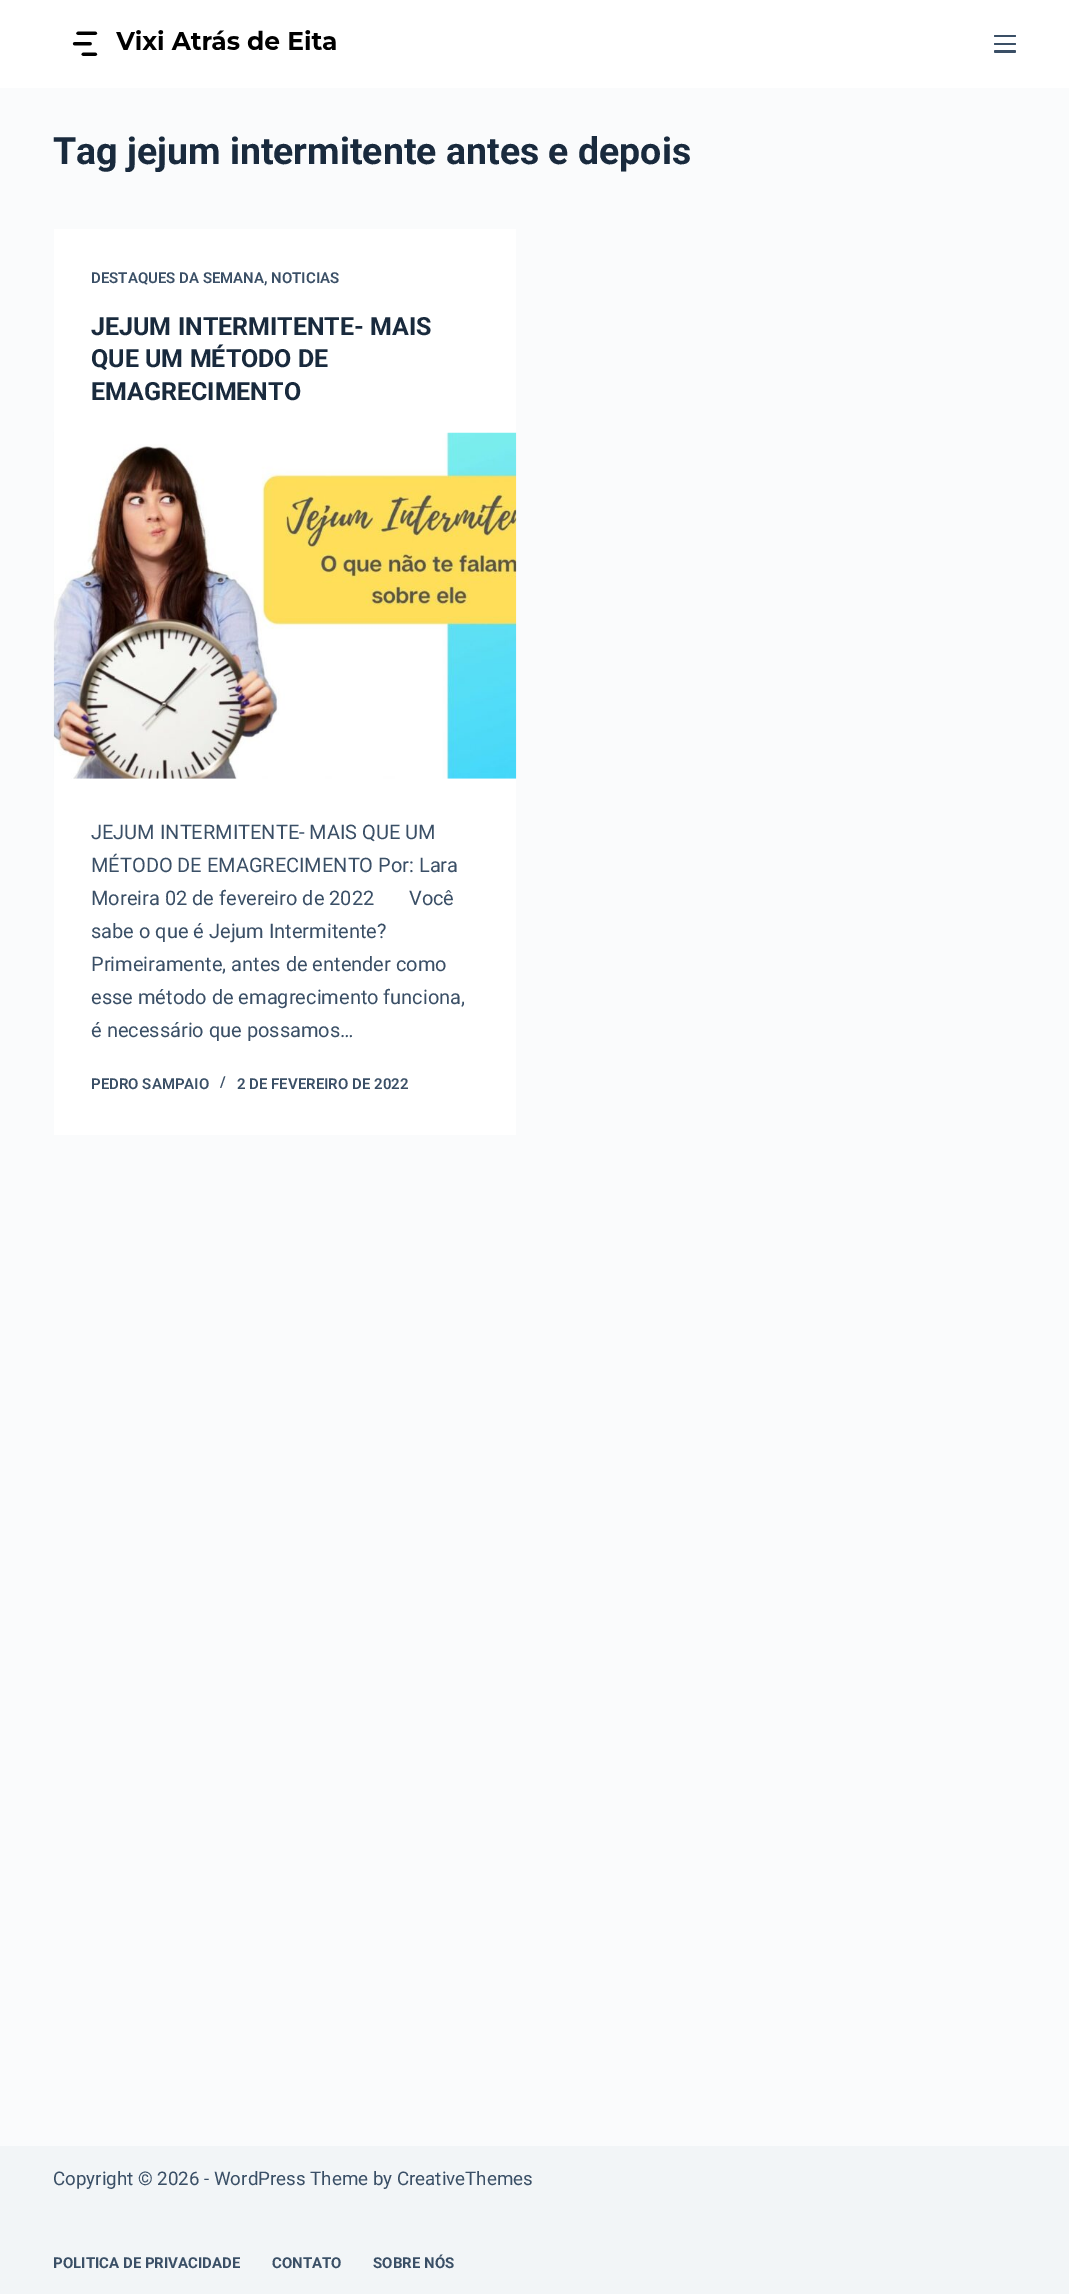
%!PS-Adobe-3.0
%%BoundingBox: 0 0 1069 2294
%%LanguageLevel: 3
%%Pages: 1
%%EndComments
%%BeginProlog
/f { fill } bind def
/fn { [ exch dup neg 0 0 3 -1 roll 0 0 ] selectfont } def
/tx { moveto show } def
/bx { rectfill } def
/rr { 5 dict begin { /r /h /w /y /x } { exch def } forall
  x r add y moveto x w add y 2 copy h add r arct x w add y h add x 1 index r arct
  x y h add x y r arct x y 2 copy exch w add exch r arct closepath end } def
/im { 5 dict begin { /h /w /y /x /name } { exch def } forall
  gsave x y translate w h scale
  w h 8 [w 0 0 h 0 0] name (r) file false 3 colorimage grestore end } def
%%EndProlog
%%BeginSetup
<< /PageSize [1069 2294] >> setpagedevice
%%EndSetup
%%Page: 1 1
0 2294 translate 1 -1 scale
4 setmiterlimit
0.98 0.984 0.988 setrgbcolor
0 0 1069 2294 bx
1 setgray
0 0 1069 88 bx
(image0.raw) 72 30 264 26 im
0.227 0.31 0.4 setrgbcolor
994 35 22 2 1 rr f
994 43 22 2 1 rr f
994 50 22 3 1.5 rr f
/Roboto-Bold 37.5 fn
0.098 0.165 0.239 setrgbcolor
(Tag jejum intermitente antes e depois) 53 164 tx
1 setgray
54 229 462 906 bx
/Roboto-SemiBold 15 fn
0.227 0.31 0.4 setrgbcolor
(DESTAQUES DA SEMANA, NOTICIAS) 91 283 tx
/Roboto-Bold 25 fn
0.098 0.165 0.239 setrgbcolor
(JEJUM INTERMITENTE- MAIS) 91 335 tx
(QUE UM MÉTODO DE) 91 367 tx
(EMAGRECIMENTO) 91 400 tx
(image1.raw) 53 432 464 347 im
/Roboto-Regular 20 fn
0.227 0.31 0.4 setrgbcolor
(JEJUM INTERMITENTE- MAIS QUE UM) 91 839 tx
(MÉTODO DE EMAGRECIMENTO Por: Lara) 91 872 tx
(Moreira 02 de fevereiro de 2022       Você) 91 905 tx
(sabe o que é Jejum Intermitente?) 91 938 tx
(Primeiramente, antes de entender como) 91 971 tx
(esse método de emagrecimento funciona,) 91 1004 tx
(é necessário que possamos…) 91 1037 tx
/Roboto-SemiBold 15 fn
(PEDRO SAMPAIO) 91 1089 tx
(/) 220 1087 tx
(2 DE FEVEREIRO DE 2022) 237 1089 tx
0.949 0.961 0.969 setrgbcolor
0 2146 1069 148 bx
/Roboto-Regular 18.75 fn
0.227 0.31 0.4 setrgbcolor
(Copyright © 2026 - WordPress Theme by CreativeThemes) 53 2185 tx
/Roboto-Bold 15 fn
(POLITICA DE PRIVACIDADE) 53 2268 tx
(CONTATO) 272 2268 tx
(SOBRE NÓS) 373 2268 tx
showpage
%%EOF
